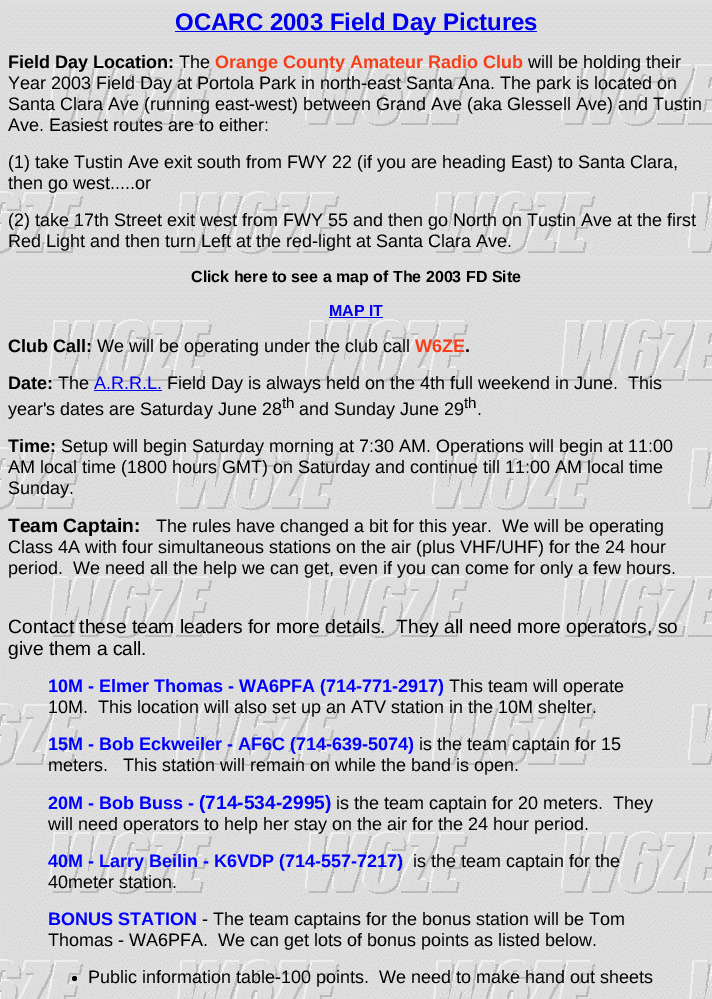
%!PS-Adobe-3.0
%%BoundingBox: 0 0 712 999
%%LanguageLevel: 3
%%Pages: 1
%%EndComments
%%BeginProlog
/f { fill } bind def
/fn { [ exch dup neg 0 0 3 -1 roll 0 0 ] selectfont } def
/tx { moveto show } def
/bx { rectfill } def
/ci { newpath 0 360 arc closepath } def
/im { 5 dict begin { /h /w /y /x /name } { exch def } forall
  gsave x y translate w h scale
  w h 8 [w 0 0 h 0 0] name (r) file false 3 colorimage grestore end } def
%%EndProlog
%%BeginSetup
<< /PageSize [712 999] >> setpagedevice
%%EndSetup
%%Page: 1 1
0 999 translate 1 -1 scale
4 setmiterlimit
1 setgray
0 0 712 999 bx
(image0.raw) 0 0 712 999 im
0 0 0.933 setrgbcolor
175 31 362 1 bx
/LiberationSans-Bold 24 fn
(OCARC 2003 Field Day Pictures) 175 30 tx
/LiberationSans-Bold 18 fn
0 setgray
(Field Day Location:) 8 68 tx
/LiberationSans-Regular 18 fn
(The) 179 68 tx
/LiberationSans-Bold 18 fn
0.961 0.247 0.106 setrgbcolor
(Orange County Amateur Radio Club) 215 68 tx
/LiberationSans-Regular 18 fn
0 setgray
(will be holding their) 528 68 tx
(Year 2003 Field Day at Portola Park in north-east Santa Ana. The park is located on) 8 89 tx
(Santa Clara Ave \(running east-west\) between Grand Ave \(aka Glessell Ave\) and Tustin) 8 110 tx
(Ave. Easiest routes are to either:) 8 131 tx
(\(1\) take Tustin Ave exit south from FWY 22 \(if you are heading East\) to Santa Clara,) 8 168 tx
(then go west.....or) 8 189 tx
(\(2\) take 17th Street exit west from FWY 55 and then go North on Tustin Ave at the first) 8 226 tx
(Red Light and then turn Left at the red-light at Santa Clara Ave.) 8 247 tx
/LiberationSans-Bold 16 fn
(Click here to see a map of The 2003 FD Site) 191 282 tx
0 0 0.933 setrgbcolor
(MAP IT) 329 316 tx
329 317 54 1 bx
/LiberationSans-Bold 18 fn
0 setgray
(Club Call:) 8 352 tx
/LiberationSans-Regular 18 fn
(We will be operating under the club call) 97 352 tx
/LiberationSans-Bold 18 fn
0.961 0.247 0.106 setrgbcolor
(W6ZE) 415 352 tx
0 setgray
(.) 465 352 tx
(Date:) 8 389 tx
/LiberationSans-Regular 18 fn
(The) 58 389 tx
0 0 0.933 setrgbcolor
(A.R.R.L.) 94 389 tx
94 390 68 1 bx
0 setgray
(Field Day is always held on the 4th full weekend in June.  This) 167 389 tx
(year's dates are Saturday June 28) 8 415 tx
/LiberationSans-Regular 15 fn
(th) 282 408 tx
/LiberationSans-Regular 18 fn
(and Sunday June 29) 299 415 tx
/LiberationSans-Regular 15 fn
(th) 464 408 tx
/LiberationSans-Regular 18 fn
(.) 477 415 tx
/LiberationSans-Bold 18 fn
(Time:) 8 452 tx
/LiberationSans-Regular 18 fn
(Setup will begin Saturday morning at 7:30 AM. Operations will begin at 11:00) 61 452 tx
(AM local time \(1800 hours GMT\) on Saturday and continue till 11:00 AM local time) 8 473 tx
(Sunday.) 8 494 tx
/LiberationSans-Bold 19.2 fn
(Team Captain:) 8 532 tx
/LiberationSans-Regular 18 fn
(The rules have changed a bit for this year.  We will be operating) 156 532 tx
(Class 4A with four simultaneous stations on the air \(plus VHF/UHF\) for the 24 hour) 8 553 tx
(period.  We need all the help we can get, even if you can come for only a few hours.) 8 574 tx
/LiberationSans-Regular 19.2 fn
(Contact these team leaders for more details.  They all need more operators, so) 8 633 tx
(give them a call.) 8 655 tx
/LiberationSans-Bold 18 fn
0 0 1 setrgbcolor
(10M - Elmer Thomas - WA6PFA \(714-771-2917\)) 48 692 tx
/LiberationSans-Regular 18 fn
0 setgray
(This team will operate) 449 692 tx
(10M.  This location will also set up an ATV station in the 10M shelter.) 48 713 tx
/LiberationSans-Bold 18 fn
0 0 1 setrgbcolor
(15M - Bob Eckweiler - AF6C \(714-639-5074\)) 48 750 tx
/LiberationSans-Regular 18 fn
0 setgray
(is the team captain for 15) 419 750 tx
(meters.   This station will remain on while the band is open.) 48 771 tx
/LiberationSans-Bold 18 fn
0 0 1 setrgbcolor
(20M - Bob Buss -) 48 809 tx
/LiberationSans-Bold 19.2 fn
(\(714-534-2995\)) 199 809 tx
/LiberationSans-Regular 18 fn
0 setgray
(is the team captain for 20 meters.  They) 336 809 tx
(will need operators to help her stay on the air for the 24 hour period.) 48 830 tx
/LiberationSans-Bold 18 fn
0 0 1 setrgbcolor
(40M - Larry Beilin - K6VDP \(714-557-7217\)) 48 867 tx
/LiberationSans-Regular 18 fn
0 setgray
(is the team captain for the) 413 867 tx
(40meter station.) 48 888 tx
/LiberationSans-Bold 18 fn
0 0 1 setrgbcolor
(BONUS STATION) 48 925 tx
/LiberationSans-Regular 18 fn
0 setgray
(- The team captains for the bonus station will be Tom) 202 925 tx
(Thomas - WA6PFA.  We can get lots of bonus points as listed below.) 48 946 tx
74.5 978.5 2.5 ci f
(Public information table-100 points.  We need to make hand out sheets) 88 983 tx
showpage
%%EOF
